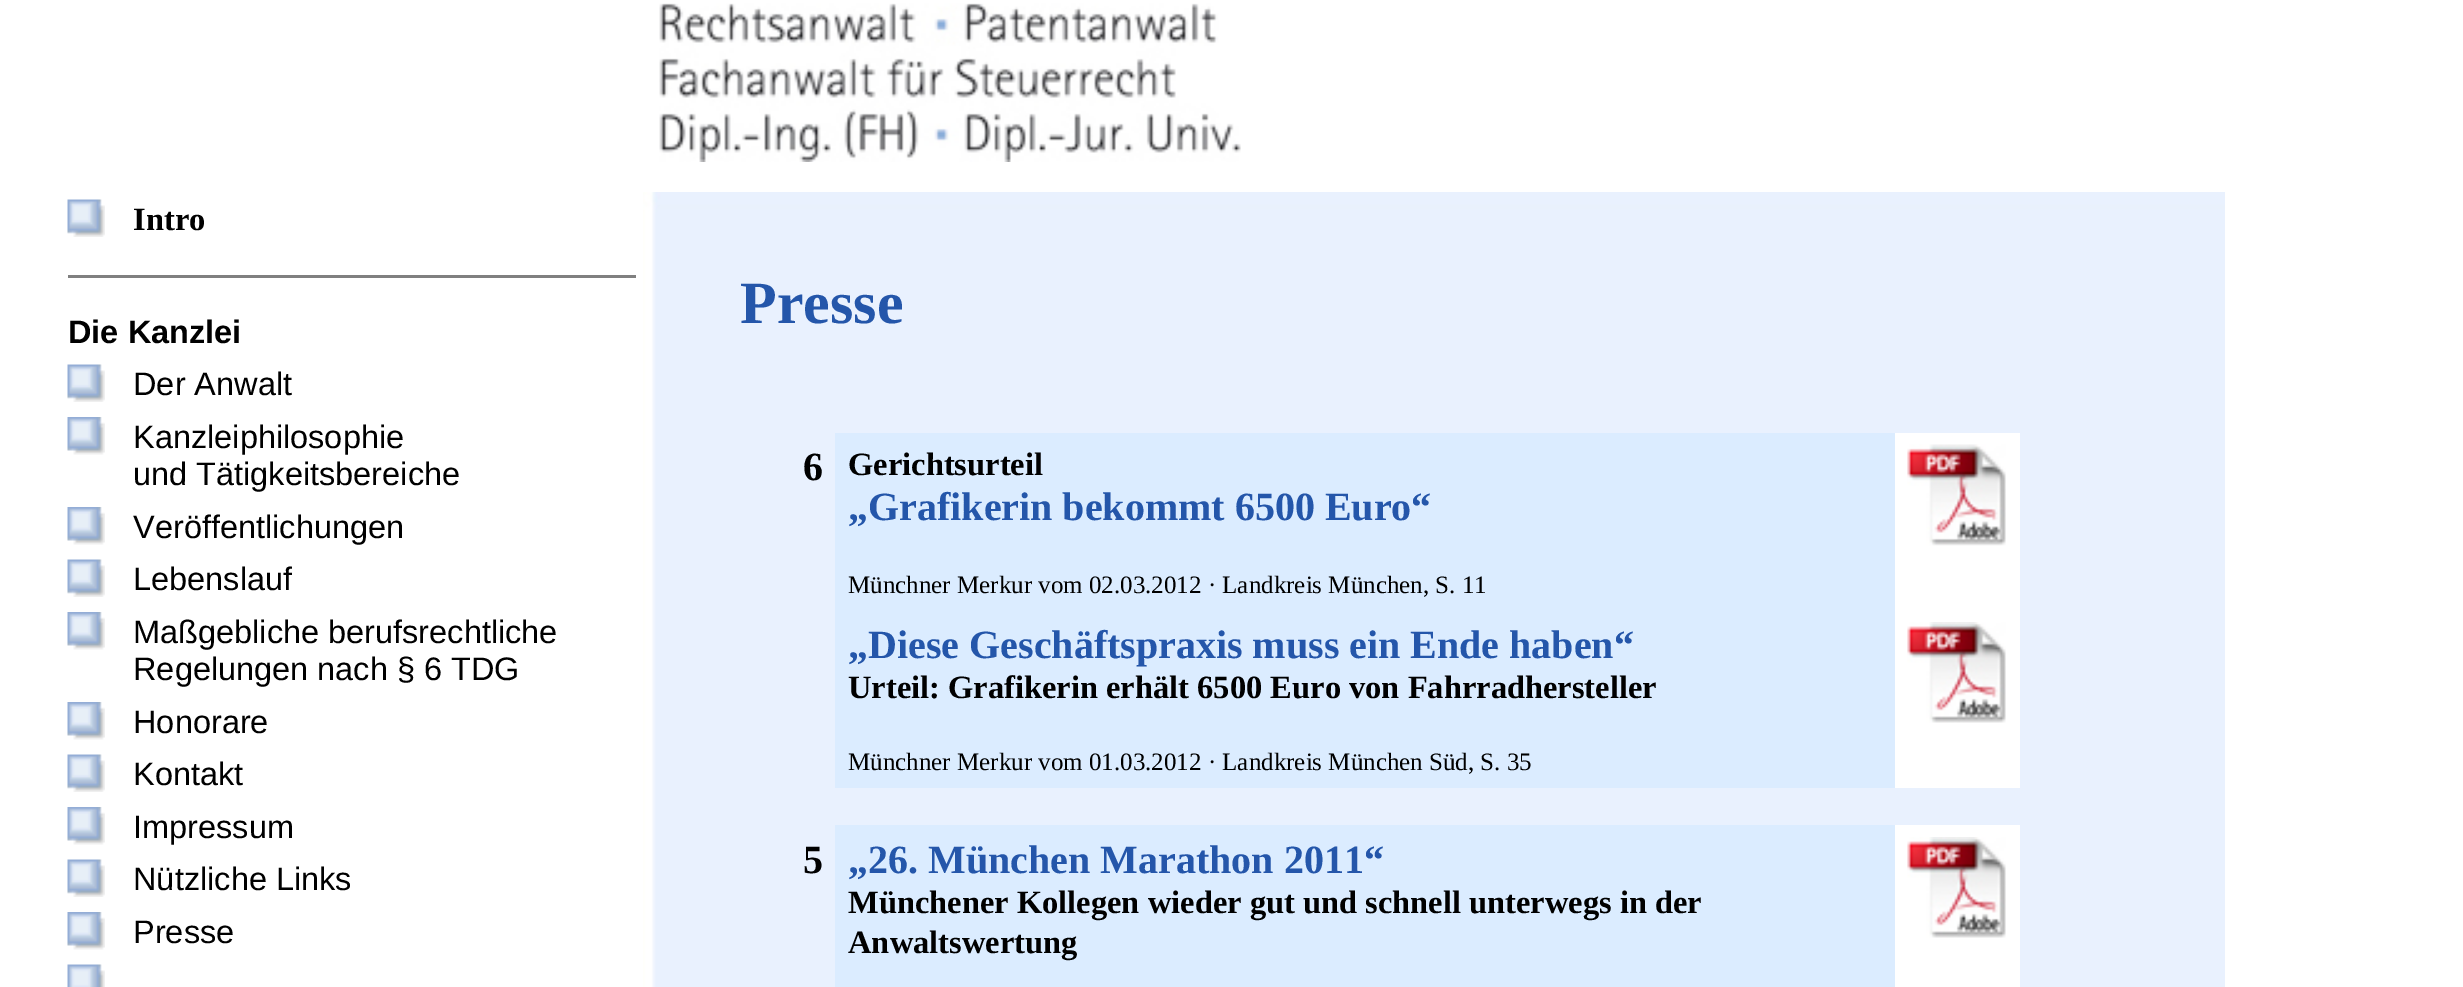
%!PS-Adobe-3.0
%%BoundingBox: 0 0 2463 987
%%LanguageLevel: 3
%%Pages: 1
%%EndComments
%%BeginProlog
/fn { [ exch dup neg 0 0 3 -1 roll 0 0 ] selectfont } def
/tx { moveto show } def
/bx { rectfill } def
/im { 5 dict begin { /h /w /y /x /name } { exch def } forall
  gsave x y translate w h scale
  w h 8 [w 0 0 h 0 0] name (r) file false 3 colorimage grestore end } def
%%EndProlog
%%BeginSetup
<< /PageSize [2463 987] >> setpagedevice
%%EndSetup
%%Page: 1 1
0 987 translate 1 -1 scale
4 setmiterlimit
1 setgray
0 0 2463 987 bx
(image0.raw) 659 3 582 159 im
(image1.raw) 643 192 1582 795 im
(image2.raw) 67 199 38 38 im
/LiberationSerif-Bold 32.5 fn
0 setgray
(Intro) 133 230 tx
0.502 setgray
68 275 568 3 bx
/LiberationSans-Bold 32.5 fn
0 setgray
(Die Kanzlei) 68 343 tx
(image2.raw) 67 364 38 38 im
/LiberationSans-Regular 32.5 fn
(Der Anwalt) 133 395 tx
(image3.raw) 67 417 38 38 im
(Kanzleiphilosophie) 133 448 tx
(und Tätigkeitsbereiche) 133 485 tx
(image3.raw) 67 507 38 38 im
(Veröffentlichungen) 133 538 tx
(image2.raw) 67 559 38 38 im
(Lebenslauf) 133 590 tx
(image3.raw) 67 612 38 38 im
(Maßgebliche berufsrechtliche) 133 643 tx
(Regelungen nach § 6 TDG) 133 680 tx
(image3.raw) 67 702 38 38 im
(Honorare) 133 733 tx
(image2.raw) 67 754 38 38 im
(Kontakt) 133 785 tx
(image3.raw) 67 807 38 38 im
(Impressum) 133 838 tx
(image2.raw) 67 859 38 38 im
(Nützliche Links) 133 890 tx
(image3.raw) 67 912 38 38 im
(Presse) 133 943 tx
(image4.raw) 67 964 38 23 im
/LiberationSerif-Bold 60 fn
0.141 0.337 0.667 setrgbcolor
(Presse) 740 323 tx
/LiberationSerif-Bold 40 fn
0 setgray
(6) 803 480 tx
0.859 0.925 1 setrgbcolor
835 433 1060 355 bx
/LiberationSerif-Bold 32.5 fn
0 setgray
(Gerichtsurteil) 848 475 tx
/LiberationSerif-Bold 40 fn
0.141 0.337 0.667 setrgbcolor
(„Grafikerin bekommt 6500 Euro“) 848 520 tx
/LiberationSerif-Regular 25 fn
0 setgray
(Münchner Merkur vom 02.03.2012 · Landkreis München, S. 11) 848 593 tx
1 setgray
1895 433 125 355 bx
(image5.raw) 1907 444 99 102 im
/LiberationSerif-Bold 40 fn
0.141 0.337 0.667 setrgbcolor
(„Diese Geschäftspraxis muss ein Ende haben“) 848 658 tx
/LiberationSerif-Bold 32.5 fn
0 setgray
(Urteil: Grafikerin erhält 6500 Euro von Fahrradhersteller) 848 698 tx
/LiberationSerif-Regular 25 fn
(Münchner Merkur vom 01.03.2012 · Landkreis München Süd, S. 35) 848 770 tx
(image6.raw) 1907 622 99 101 im
/LiberationSerif-Bold 40 fn
(5) 803 873 tx
0.859 0.925 1 setrgbcolor
835 825 1060 162 bx
0.141 0.337 0.667 setrgbcolor
(„26. München Marathon 2011“) 848 873 tx
/LiberationSerif-Bold 32.5 fn
0 setgray
(Münchener Kollegen wieder gut und schnell unterwegs in der) 848 913 tx
(Anwaltswertung) 848 953 tx
1 setgray
1895 825 125 162 bx
(image6.raw) 1907 837 99 101 im
showpage
%%EOF
